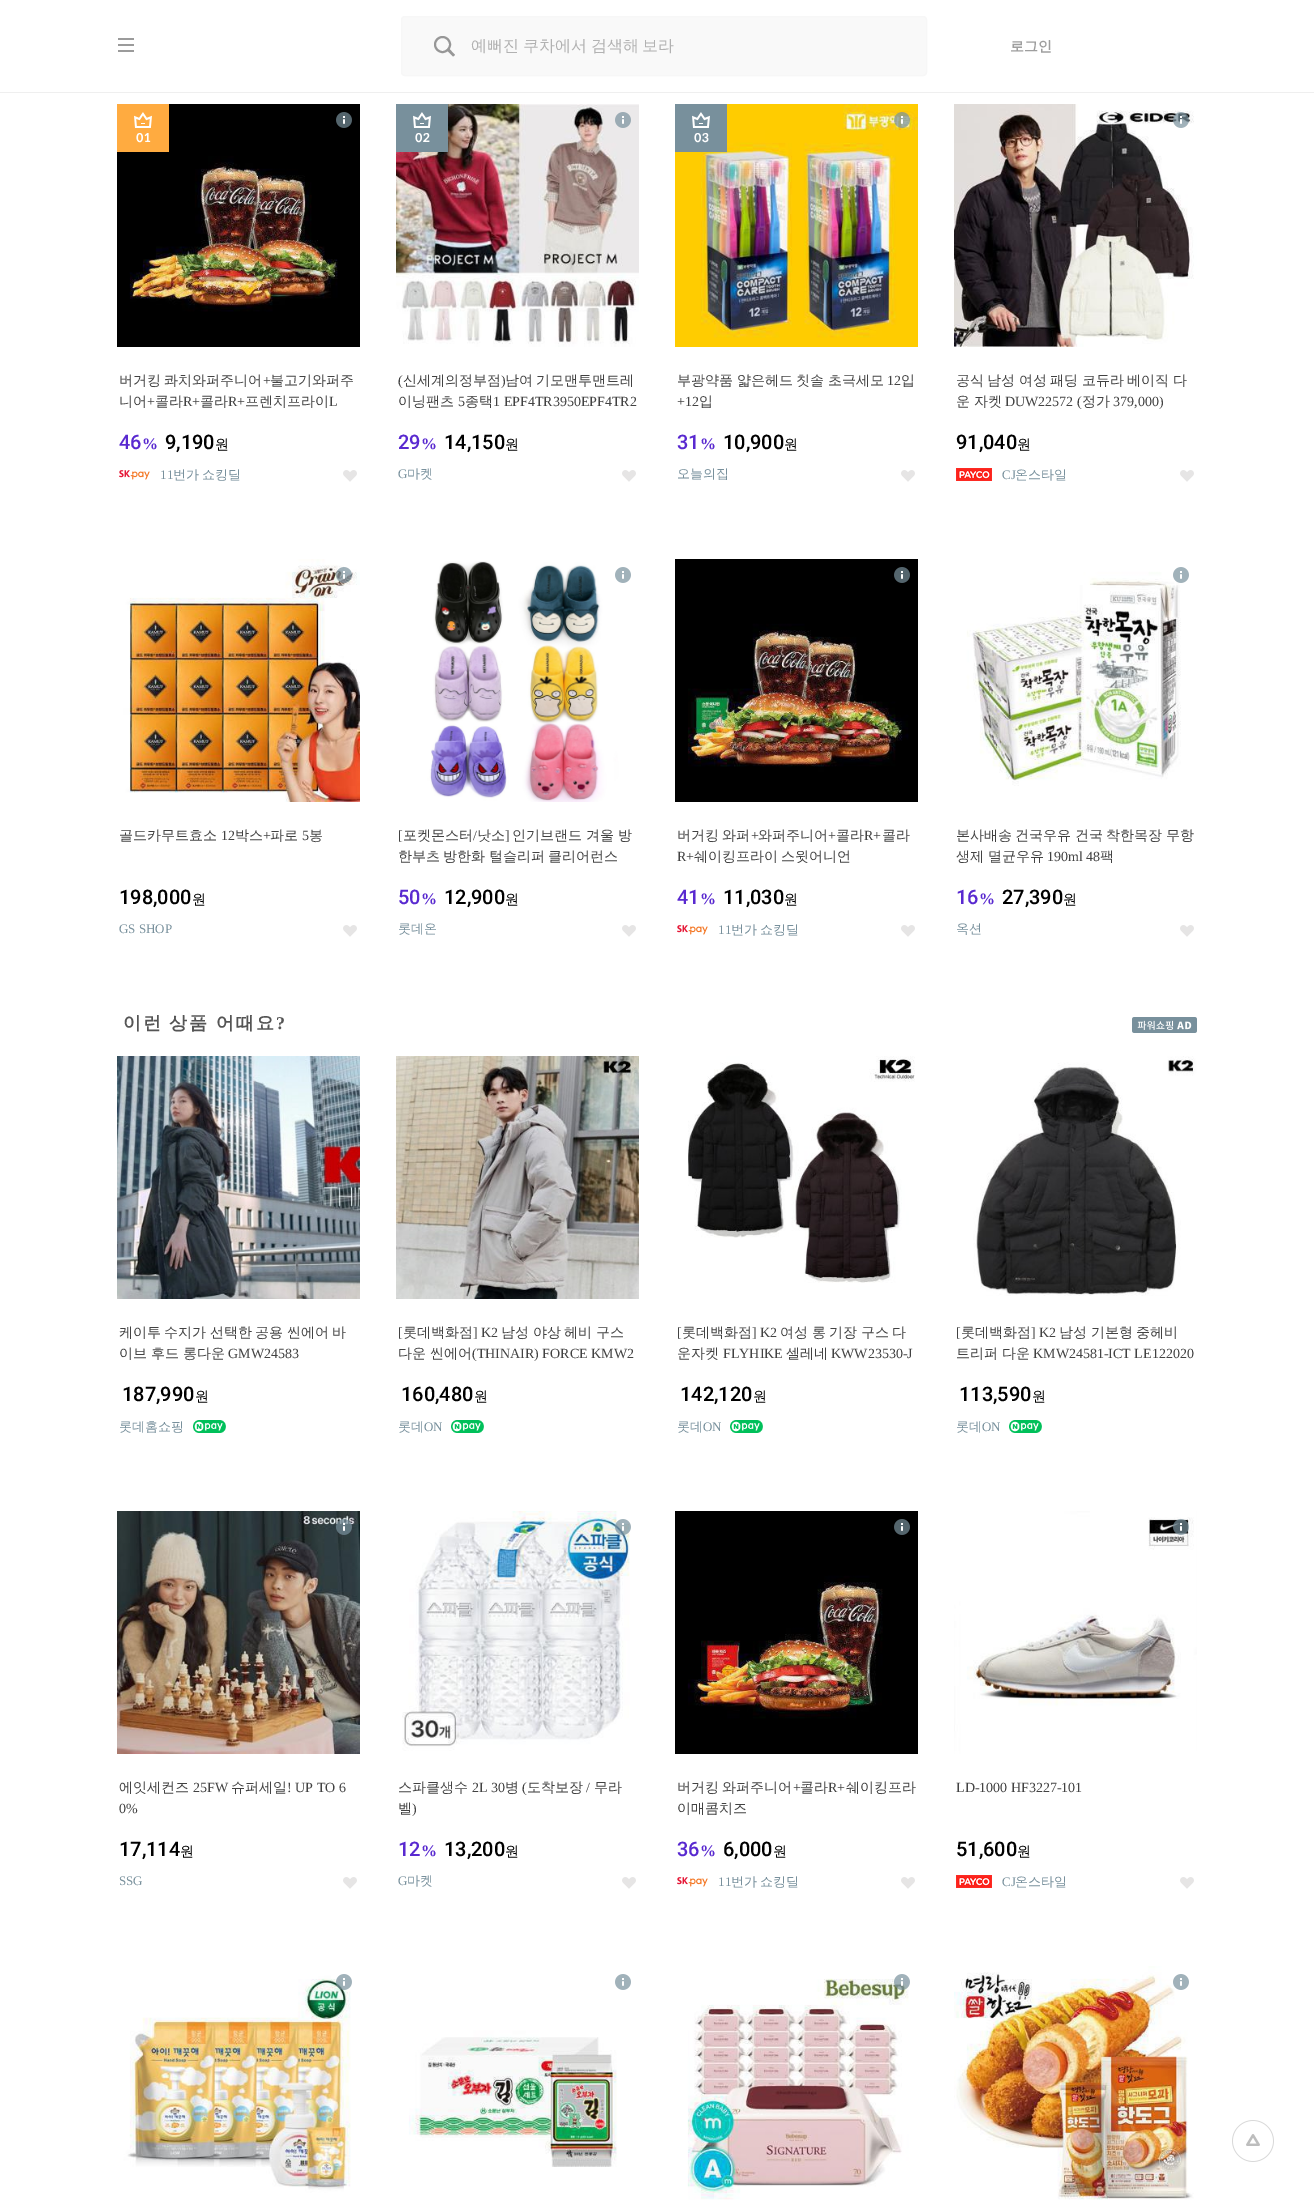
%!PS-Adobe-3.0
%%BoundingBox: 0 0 1314 2202
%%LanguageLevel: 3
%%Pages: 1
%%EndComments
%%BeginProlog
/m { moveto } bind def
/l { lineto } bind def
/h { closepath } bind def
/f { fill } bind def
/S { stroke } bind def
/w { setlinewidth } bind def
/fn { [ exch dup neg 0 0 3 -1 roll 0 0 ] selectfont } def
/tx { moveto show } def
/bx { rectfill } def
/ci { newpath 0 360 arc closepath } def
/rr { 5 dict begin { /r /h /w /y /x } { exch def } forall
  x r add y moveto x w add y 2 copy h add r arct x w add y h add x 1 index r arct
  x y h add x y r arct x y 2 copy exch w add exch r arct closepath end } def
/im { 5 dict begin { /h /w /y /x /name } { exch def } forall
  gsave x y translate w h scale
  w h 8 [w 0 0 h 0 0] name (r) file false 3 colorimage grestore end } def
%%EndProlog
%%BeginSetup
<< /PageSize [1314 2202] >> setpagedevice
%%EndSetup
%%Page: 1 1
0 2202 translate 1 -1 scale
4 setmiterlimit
1 setgray
0 0 1314 2202 bx
0.937 setgray
0 92 1314 1 bx
0.608 setgray
118 38 16 2 bx
118 44 16 2 bx
118 50 16 2 bx
0.976 setgray
401 16 526 60 4 rr f
0.592 setgray
2 w
442.5 44.5 7.5 ci S
446.5 50 m 448.5 48 l 455 55 l 453 56.5 l h eofill
0.969 setgray
1 w
401.5 16.5 525 59 3.5 rr S
/WenQuanYiZenHei-Medium 16 fn
0.698 setgray
471 51 m -1 0 32 (예뻐진 쿠차에서 검색해 보라) widthshow
/WenQuanYiZenHei-Bold 14 fn
0.62 setgray
(로그인) 1010 51 tx
(image0.raw) 117 104 243 243 im
(image1.raw) 117 104 52 48 im
(image2.raw) 336 112 16 16 im
(image3.raw) 343 470 14 12 im
/WenQuanYiZenHei-Medium 14 fn
0.259 setgray
119 385 m -0.75 0 32 (버거킹 콰치와퍼주니어) widthshow
/LiberationSerif-Regular 14 fn
(+) 263 385 tx
/WenQuanYiZenHei-Medium 14 fn
(불고기와퍼주) 270 385 tx
(니어) 119 406 tx
/LiberationSerif-Regular 14 fn
(+) 147 406 tx
/WenQuanYiZenHei-Medium 14 fn
(콜라) 155 406 tx
/LiberationSerif-Regular 14 fn
(R+) 183 406 tx
/WenQuanYiZenHei-Medium 14 fn
(콜라) 200 406 tx
/LiberationSerif-Regular 14 fn
(R+) 228 406 tx
/WenQuanYiZenHei-Medium 14 fn
(프렌치프라이) 245 406 tx
/LiberationSerif-Regular 14 fn
(L) 329 406 tx
/Roboto-Medium 20 fn
0.349 0.161 0.816 setrgbcolor
(46) 119 449 tx
/LiberationSerif-Bold 16 fn
(%) 142 449 tx
/Roboto-Medium 20 fn
0 setgray
(9,190) 165 449 tx
/WenQuanYiZenHei-Medium 14 fn
(원) 215 449 tx
(image4.raw) 119 470 31 10 im
/LiberationSerif-Regular 13 fn
0.471 0.565 0.612 setrgbcolor
(11) 160 479 tx
/WenQuanYiZenHei-Medium 13 fn
173 479 m -1 0 32 (번가 쇼킹딜) widthshow
(image5.raw) 396 104 243 243 im
(image6.raw) 396 104 52 48 im
(image7.raw) 615 112 16 16 im
(image3.raw) 622 470 14 12 im
/LiberationSerif-Regular 14 fn
0.259 setgray
(\() 398 385 tx
/WenQuanYiZenHei-Medium 14 fn
(신세계의정부점) 403 385 tx
/LiberationSerif-Regular 14 fn
(\)) 501 385 tx
/WenQuanYiZenHei-Medium 14 fn
505 385 m -0.75 0 32 (남여 기모맨투맨트레) widthshow
(이닝팬츠) 398 406 tx
/LiberationSerif-Regular 14 fn
(5) 458 406 tx
/WenQuanYiZenHei-Medium 14 fn
(종택) 465 406 tx
/LiberationSerif-Regular 14 fn
(1 EPF4TR3950EPF4TR2) 493 406 tx
/Roboto-Medium 20 fn
0.349 0.161 0.816 setrgbcolor
(29) 398 449 tx
/LiberationSerif-Bold 16 fn
(%) 421 449 tx
/Roboto-Medium 20 fn
0 setgray
(14,150) 444 449 tx
/WenQuanYiZenHei-Medium 14 fn
(원) 505 449 tx
/LiberationSerif-Regular 13 fn
0.471 0.565 0.612 setrgbcolor
(G) 398 478 tx
/WenQuanYiZenHei-Medium 13 fn
(마켓) 407 478 tx
(image8.raw) 675 104 243 243 im
(image9.raw) 675 104 52 48 im
(image10.raw) 894 112 16 16 im
(image3.raw) 901 470 14 12 im
/WenQuanYiZenHei-Medium 14 fn
0.259 setgray
677 385 m -0.5 0 32 (부광약품 얇은헤드 칫솔 초극세모) widthshow
/LiberationSerif-Regular 14 fn
(12) 887 385 tx
/WenQuanYiZenHei-Medium 14 fn
(입) 901 385 tx
/LiberationSerif-Regular 14 fn
(+12) 677 406 tx
/WenQuanYiZenHei-Medium 14 fn
(입) 699 406 tx
/Roboto-Medium 20 fn
0.349 0.161 0.816 setrgbcolor
(31) 677 449 tx
/LiberationSerif-Bold 16 fn
(%) 700 449 tx
/Roboto-Medium 20 fn
0 setgray
(10,900) 723 449 tx
/WenQuanYiZenHei-Medium 14 fn
(원) 784 449 tx
/WenQuanYiZenHei-Medium 13 fn
0.471 0.565 0.612 setrgbcolor
(오늘의집) 677 478 tx
(image11.raw) 954 104 243 243 im
(image12.raw) 1173 112 16 16 im
(image3.raw) 1180 470 14 12 im
/WenQuanYiZenHei-Medium 14 fn
0.259 setgray
956 385 m -0.75 0 32 (공식 남성 여성 패딩 코듀라 베이직 다) widthshow
(운) 956 406 tx
(자켓) 974 406 tx
/LiberationSerif-Regular 14 fn
(DUW22572 \() 1005 406 tx
/WenQuanYiZenHei-Medium 14 fn
(정가) 1082 406 tx
/LiberationSerif-Regular 14 fn
(379,000\)) 1113 406 tx
/Roboto-Medium 20 fn
0 setgray
(91,040) 956 449 tx
/WenQuanYiZenHei-Medium 14 fn
(원) 1017 449 tx
(image13.raw) 956 468 36 13 im
/LiberationSerif-Regular 13 fn
0.471 0.565 0.612 setrgbcolor
(CJ) 1002 479 tx
/WenQuanYiZenHei-Medium 13 fn
(온스타일) 1015 479 tx
(image14.raw) 117 559 243 243 im
/WenQuanYiZenHei-Medium 14 fn
0.259 setgray
(골드카무트효소) 119 840 tx
/LiberationSerif-Regular 14 fn
(12) 221 840 tx
/WenQuanYiZenHei-Medium 14 fn
(박스) 235 840 tx
/LiberationSerif-Regular 14 fn
(+) 263 840 tx
/WenQuanYiZenHei-Medium 14 fn
(파로) 270 840 tx
/LiberationSerif-Regular 14 fn
(5) 302 840 tx
/WenQuanYiZenHei-Medium 14 fn
(봉) 309 840 tx
/Roboto-Medium 20 fn
0 setgray
(198,000) 119 904 tx
/WenQuanYiZenHei-Medium 14 fn
(원) 192 904 tx
(image15.raw) 336 567 16 16 im
(image3.raw) 343 925 14 12 im
/LiberationSerif-Regular 13 fn
0.471 0.565 0.612 setrgbcolor
(GS SHOP) 119 933 tx
(image16.raw) 396 559 243 243 im
(image17.raw) 615 567 16 16 im
(image3.raw) 622 925 14 12 im
/LiberationSerif-Regular 14 fn
0.259 setgray
([) 398 840 tx
/WenQuanYiZenHei-Medium 14 fn
(포켓몬스터) 403 840 tx
/LiberationSerif-Regular 14 fn
(/) 473 840 tx
/WenQuanYiZenHei-Medium 14 fn
(낫소) 477 840 tx
/LiberationSerif-Regular 14 fn
(]) 505 840 tx
/WenQuanYiZenHei-Medium 14 fn
(인기브랜드 겨울 방) 512 840 tx
398 861 m -0.75 0 32 (한부츠 방한화 털슬리퍼 클리어런스) widthshow
/Roboto-Medium 20 fn
0.349 0.161 0.816 setrgbcolor
(50) 398 904 tx
/LiberationSerif-Bold 16 fn
(%) 421 904 tx
/Roboto-Medium 20 fn
0 setgray
(12,900) 444 904 tx
/WenQuanYiZenHei-Medium 14 fn
(원) 505 904 tx
/WenQuanYiZenHei-Medium 13 fn
0.471 0.565 0.612 setrgbcolor
(롯데온) 398 933 tx
(image18.raw) 675 559 243 243 im
(image2.raw) 894 567 16 16 im
(image3.raw) 901 925 14 12 im
/WenQuanYiZenHei-Medium 14 fn
0.259 setgray
677 840 m -0.75 0 32 (버거킹 와퍼) widthshow
/LiberationSerif-Regular 14 fn
(+) 751 840 tx
/WenQuanYiZenHei-Medium 14 fn
(와퍼주니어) 758 840 tx
/LiberationSerif-Regular 14 fn
(+) 828 840 tx
/WenQuanYiZenHei-Medium 14 fn
(콜라) 836 840 tx
/LiberationSerif-Regular 14 fn
(R+) 864 840 tx
/WenQuanYiZenHei-Medium 14 fn
(콜라) 882 840 tx
/LiberationSerif-Regular 14 fn
(R+) 677 861 tx
/WenQuanYiZenHei-Medium 14 fn
694 861 m -0.75 0 32 (쉐이킹프라이 스윗어니언) widthshow
/Roboto-Medium 20 fn
0.349 0.161 0.816 setrgbcolor
(41) 677 904 tx
/LiberationSerif-Bold 16 fn
(%) 700 904 tx
/Roboto-Medium 20 fn
0 setgray
(11,030) 723 904 tx
/WenQuanYiZenHei-Medium 14 fn
(원) 784 904 tx
(image4.raw) 677 925 31 10 im
/LiberationSerif-Regular 13 fn
0.471 0.565 0.612 setrgbcolor
(11) 718 934 tx
/WenQuanYiZenHei-Medium 13 fn
731 934 m -1 0 32 (번가 쇼킹딜) widthshow
(image19.raw) 954 559 243 243 im
(image20.raw) 1173 567 16 16 im
(image3.raw) 1180 925 14 12 im
/WenQuanYiZenHei-Medium 14 fn
0.259 setgray
956 840 m -0.75 0 32 (본사배송 건국우유 건국 착한목장 무항) widthshow
(생제) 956 861 tx
(멸균우유) 988 861 tx
/LiberationSerif-Regular 14 fn
(190ml 48) 1047 861 tx
/WenQuanYiZenHei-Medium 14 fn
(팩) 1100 861 tx
/Roboto-Medium 20 fn
0.349 0.161 0.816 setrgbcolor
(16) 956 904 tx
/LiberationSerif-Bold 16 fn
(%) 979 904 tx
/Roboto-Medium 20 fn
0 setgray
(27,390) 1002 904 tx
/WenQuanYiZenHei-Medium 14 fn
(원) 1063 904 tx
/WenQuanYiZenHei-Medium 13 fn
0.471 0.565 0.612 setrgbcolor
(옥션) 956 933 tx
/WenQuanYiZenHei-Bold 18 fn
0.333 setgray
123 1029 m -1 0 32 2 0 (이런 상품 어때요) awidthshow
/LiberationSerif-Bold 18 fn
276 1029 m 2 0 (?) ashow
(image21.raw) 1132 1017 65 16 im
(image22.raw) 117 1056 243 243 im
/WenQuanYiZenHei-Medium 14 fn
0.259 setgray
119 1337 m -0.75 0 32 (케이투 수지가 선택한 공용 씬에어 바) widthshow
(이브 후드 롱다운) 119 1358 tx
/LiberationSerif-Regular 14 fn
(GMW24583) 228 1358 tx
/Roboto-Medium 20 fn
0 setgray
(187,990) 122 1401 tx
/WenQuanYiZenHei-Medium 14 fn
(원) 195 1401 tx
/WenQuanYiZenHei-Medium 13 fn
0.471 0.565 0.612 setrgbcolor
(롯데홈쇼핑) 119 1431 tx
(image23.raw) 193 1420 33 13 im
(image24.raw) 396 1056 243 243 im
/LiberationSerif-Regular 14 fn
0.259 setgray
([) 398 1337 tx
/WenQuanYiZenHei-Medium 14 fn
(롯데백화점) 403 1337 tx
/LiberationSerif-Regular 14 fn
(] K2) 473 1337 tx
/WenQuanYiZenHei-Medium 14 fn
(남성) 501 1337 tx
(야상) 533 1337 tx
(헤비) 564 1337 tx
(구스) 596 1337 tx
(다운) 398 1358 tx
(씬에어) 430 1358 tx
/LiberationSerif-Regular 14 fn
(\(THINAIR\) FORCE KMW2) 472 1358 tx
/Roboto-Medium 20 fn
0 setgray
(160,480) 401 1401 tx
/WenQuanYiZenHei-Medium 14 fn
(원) 474 1401 tx
/WenQuanYiZenHei-Medium 13 fn
0.471 0.565 0.612 setrgbcolor
(롯데) 398 1431 tx
/LiberationSerif-Regular 13 fn
(ON) 424 1431 tx
(image23.raw) 451 1420 33 13 im
(image25.raw) 675 1056 243 243 im
/LiberationSerif-Regular 14 fn
0.259 setgray
([) 677 1337 tx
/WenQuanYiZenHei-Medium 14 fn
(롯데백화점) 682 1337 tx
/LiberationSerif-Regular 14 fn
(] K2) 752 1337 tx
/WenQuanYiZenHei-Medium 14 fn
(여성) 780 1337 tx
(롱) 812 1337 tx
(기장) 829 1337 tx
(구스) 861 1337 tx
(다) 892 1337 tx
(운자켓) 677 1358 tx
/LiberationSerif-Regular 14 fn
(FLYHIKE) 723 1358 tx
/WenQuanYiZenHei-Medium 14 fn
(셀레네) 786 1358 tx
/LiberationSerif-Regular 14 fn
(KWW23530-J) 831 1358 tx
/Roboto-Medium 20 fn
0 setgray
(142,120) 680 1401 tx
/WenQuanYiZenHei-Medium 14 fn
(원) 753 1401 tx
/WenQuanYiZenHei-Medium 13 fn
0.471 0.565 0.612 setrgbcolor
(롯데) 677 1431 tx
/LiberationSerif-Regular 13 fn
(ON) 703 1431 tx
(image23.raw) 730 1420 33 13 im
(image26.raw) 954 1056 243 243 im
/LiberationSerif-Regular 14 fn
0.259 setgray
([) 956 1337 tx
/WenQuanYiZenHei-Medium 14 fn
(롯데백화점) 961 1337 tx
/LiberationSerif-Regular 14 fn
(] K2) 1031 1337 tx
/WenQuanYiZenHei-Medium 14 fn
(남성) 1059 1337 tx
(기본형) 1091 1337 tx
(중헤비) 1136 1337 tx
(트리퍼) 956 1358 tx
(다운) 1002 1358 tx
/LiberationSerif-Regular 14 fn
(KMW24581-ICT LE122020) 1033 1358 tx
/Roboto-Medium 20 fn
0 setgray
(113,590) 959 1401 tx
/WenQuanYiZenHei-Medium 14 fn
(원) 1032 1401 tx
/WenQuanYiZenHei-Medium 13 fn
0.471 0.565 0.612 setrgbcolor
(롯데) 956 1431 tx
/LiberationSerif-Regular 13 fn
(ON) 982 1431 tx
(image23.raw) 1009 1420 33 13 im
(image27.raw) 117 1511 243 243 im
/WenQuanYiZenHei-Medium 14 fn
0.259 setgray
(에잇세컨즈) 119 1792 tx
/LiberationSerif-Regular 14 fn
(25FW) 193 1792 tx
/WenQuanYiZenHei-Medium 14 fn
(슈퍼세일) 231 1792 tx
/LiberationSerif-Regular 14 fn
(! UP TO 6) 287 1792 tx
(0%) 119 1813 tx
/Roboto-Medium 20 fn
0 setgray
(17,114) 119 1856 tx
/WenQuanYiZenHei-Medium 14 fn
(원) 180 1856 tx
(image28.raw) 336 1519 16 16 im
(image3.raw) 343 1877 14 12 im
/LiberationSerif-Regular 13 fn
0.471 0.565 0.612 setrgbcolor
(SSG) 119 1885 tx
(image29.raw) 396 1511 243 243 im
/WenQuanYiZenHei-Medium 14 fn
0.259 setgray
(스파클생수) 398 1792 tx
/LiberationSerif-Regular 14 fn
(2L 30) 472 1792 tx
/WenQuanYiZenHei-Medium 14 fn
(병) 505 1792 tx
/LiberationSerif-Regular 14 fn
(\() 522 1792 tx
/WenQuanYiZenHei-Medium 14 fn
(도착보장) 527 1792 tx
/LiberationSerif-Regular 14 fn
(/) 586 1792 tx
/WenQuanYiZenHei-Medium 14 fn
(무라) 594 1792 tx
(벨) 398 1813 tx
/LiberationSerif-Regular 14 fn
(\)) 412 1813 tx
/Roboto-Medium 20 fn
0.349 0.161 0.816 setrgbcolor
(12) 398 1856 tx
/LiberationSerif-Bold 16 fn
(%) 421 1856 tx
/Roboto-Medium 20 fn
0 setgray
(13,200) 444 1856 tx
/WenQuanYiZenHei-Medium 14 fn
(원) 505 1856 tx
(image30.raw) 615 1519 16 16 im
(image3.raw) 622 1877 14 12 im
/LiberationSerif-Regular 13 fn
0.471 0.565 0.612 setrgbcolor
(G) 398 1885 tx
/WenQuanYiZenHei-Medium 13 fn
(마켓) 407 1885 tx
(image31.raw) 675 1511 243 243 im
(image2.raw) 894 1519 16 16 im
(image3.raw) 901 1877 14 12 im
/WenQuanYiZenHei-Medium 14 fn
0.259 setgray
677 1792 m -0.75 0 32 (버거킹 와퍼주니어) widthshow
/LiberationSerif-Regular 14 fn
(+) 793 1792 tx
/WenQuanYiZenHei-Medium 14 fn
(콜라) 800 1792 tx
/LiberationSerif-Regular 14 fn
(R+) 828 1792 tx
/WenQuanYiZenHei-Medium 14 fn
(쉐이킹프라) 846 1792 tx
(이매콤치즈) 677 1813 tx
/Roboto-Medium 20 fn
0.349 0.161 0.816 setrgbcolor
(36) 677 1856 tx
/LiberationSerif-Bold 16 fn
(%) 700 1856 tx
/Roboto-Medium 20 fn
0 setgray
(6,000) 723 1856 tx
/WenQuanYiZenHei-Medium 14 fn
(원) 773 1856 tx
(image4.raw) 677 1877 31 10 im
/LiberationSerif-Regular 13 fn
0.471 0.565 0.612 setrgbcolor
(11) 718 1886 tx
/WenQuanYiZenHei-Medium 13 fn
731 1886 m -1 0 32 (번가 쇼킹딜) widthshow
(image32.raw) 954 1511 243 243 im
/LiberationSerif-Regular 14 fn
0.259 setgray
(LD-1000 HF3227-101) 956 1792 tx
/Roboto-Medium 20 fn
0 setgray
(51,600) 956 1856 tx
/WenQuanYiZenHei-Medium 14 fn
(원) 1017 1856 tx
(image33.raw) 1173 1519 16 16 im
(image3.raw) 1180 1877 14 12 im
(image13.raw) 956 1875 36 13 im
/LiberationSerif-Regular 13 fn
0.471 0.565 0.612 setrgbcolor
(CJ) 1002 1886 tx
/WenQuanYiZenHei-Medium 13 fn
(온스타일) 1015 1886 tx
(image34.raw) 117 1966 243 236 im
(image35.raw) 336 1974 16 16 im
(image36.raw) 396 1966 243 236 im
(image17.raw) 615 1974 16 16 im
(image37.raw) 675 1966 243 236 im
(image38.raw) 894 1974 16 16 im
(image39.raw) 954 1966 243 236 im
(image40.raw) 1173 1974 16 16 im
(image41.raw) 1232 2120 42 42 im
showpage
%%EOF
